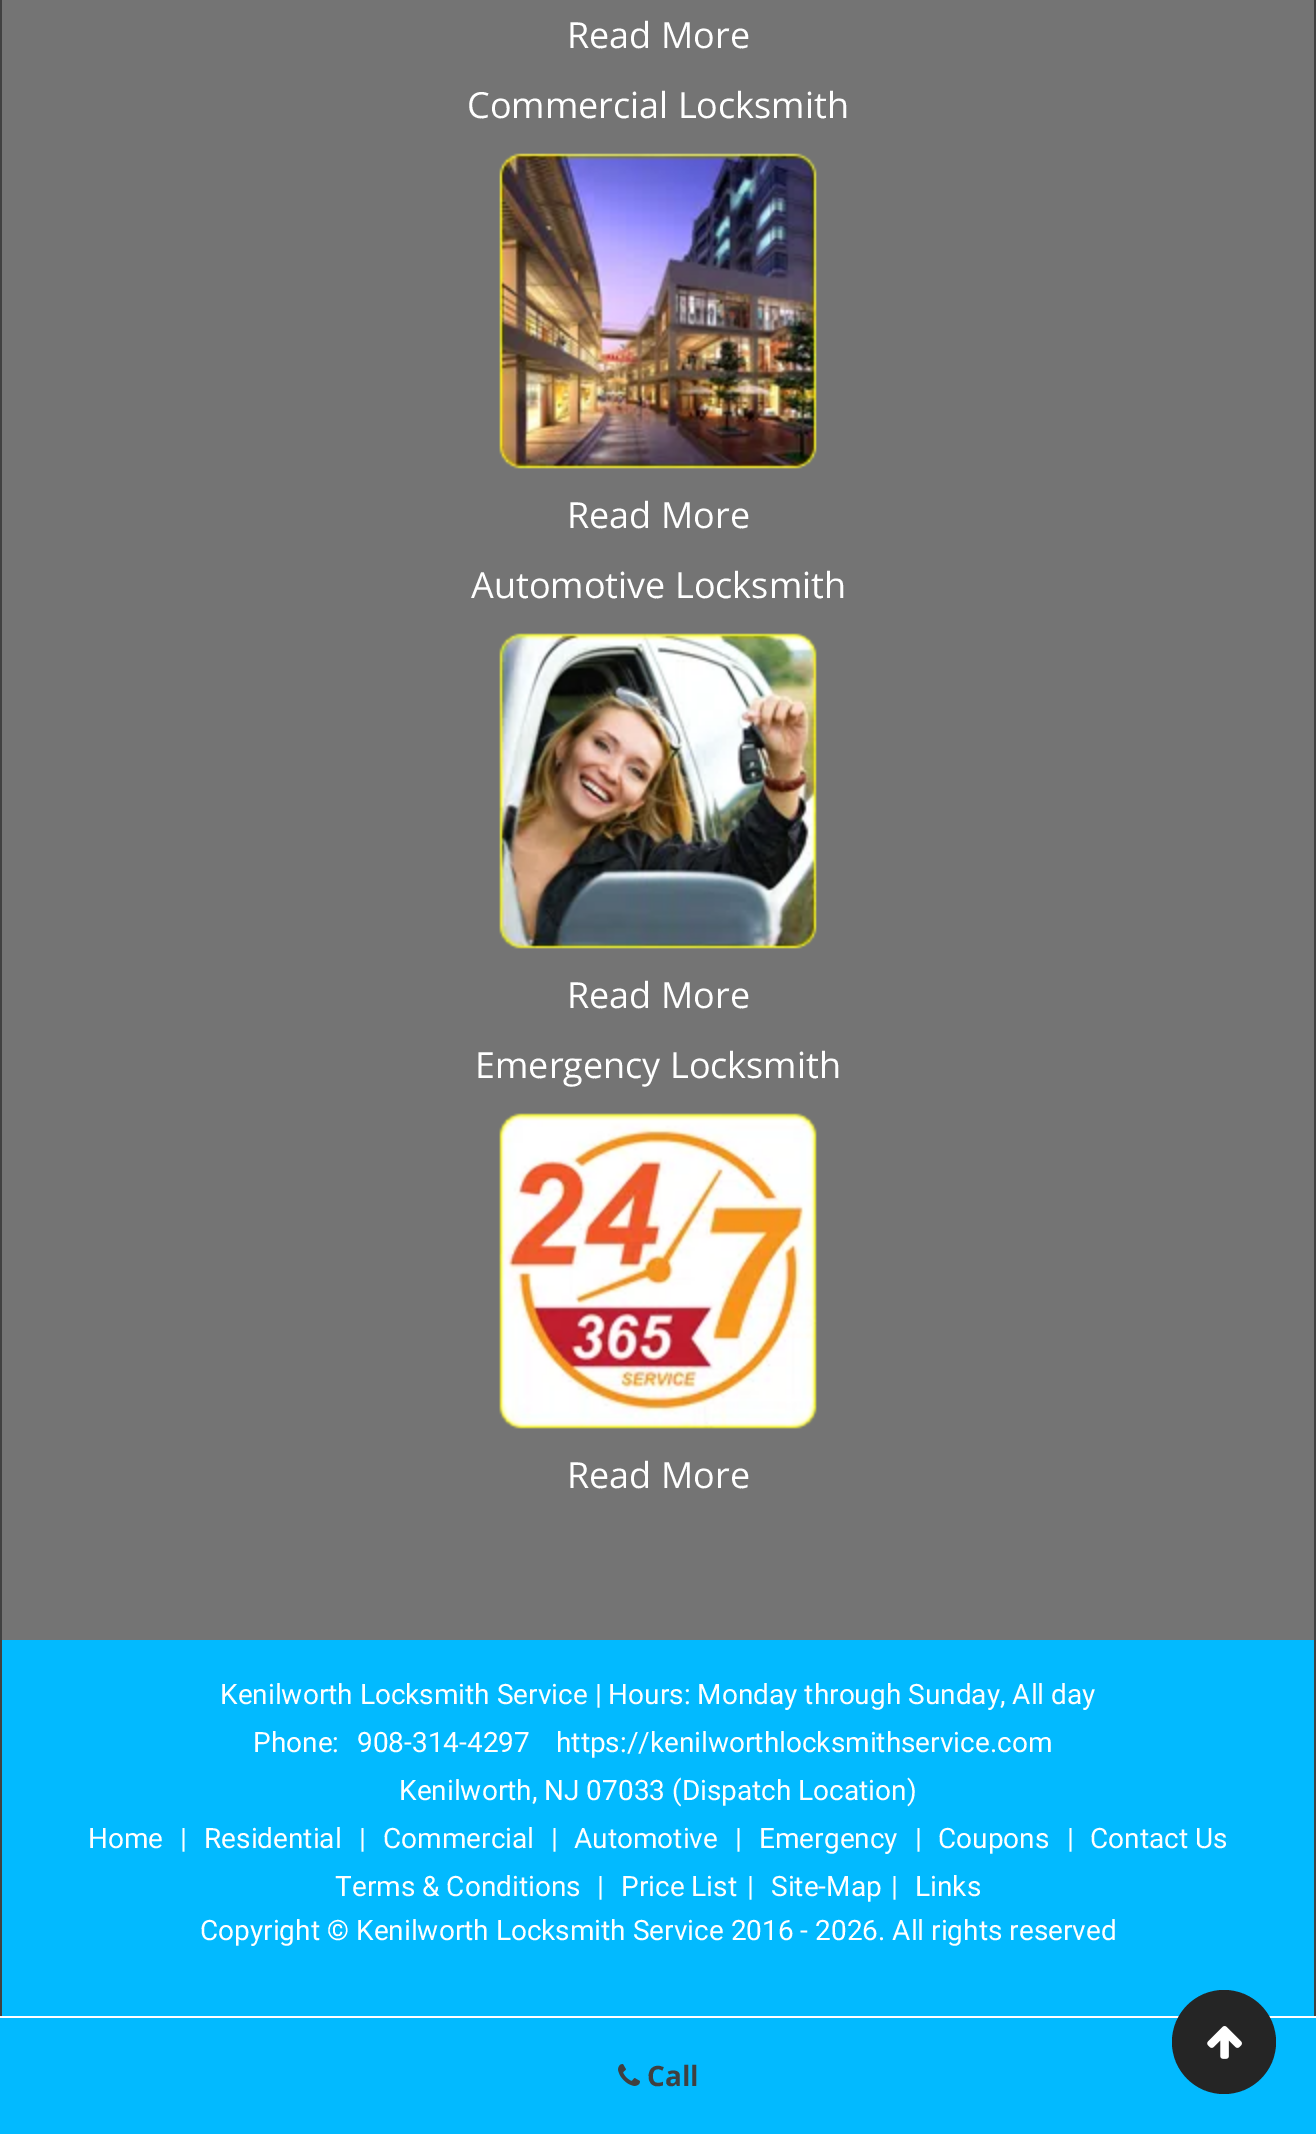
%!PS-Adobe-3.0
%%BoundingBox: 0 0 1316 2134
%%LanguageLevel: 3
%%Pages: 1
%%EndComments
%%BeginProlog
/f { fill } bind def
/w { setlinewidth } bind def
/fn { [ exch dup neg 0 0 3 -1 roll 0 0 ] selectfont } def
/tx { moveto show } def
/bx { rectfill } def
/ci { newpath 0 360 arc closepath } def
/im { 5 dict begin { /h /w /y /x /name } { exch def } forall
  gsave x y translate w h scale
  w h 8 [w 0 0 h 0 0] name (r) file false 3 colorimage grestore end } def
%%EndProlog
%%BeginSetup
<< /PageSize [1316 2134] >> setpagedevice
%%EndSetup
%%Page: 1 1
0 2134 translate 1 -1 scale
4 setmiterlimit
1 setgray
0 0 1316 2134 bx
0.255 setgray
2 w
1 -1 1314 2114 rectstroke
0.455 setgray
2 0 1312 1640 bx
/OpenSans-Regular 36 fn
1 setgray
(Read More) 567 48 tx
(Commercial Locksmith) 467 118 tx
(image0.raw) 499 153 318 316 im
(Read More) 567 528 tx
(Automotive Locksmith) 471 598 tx
(image1.raw) 499 633 318 316 im
(Read More) 567 1008 tx
(Emergency Locksmith) 475 1078 tx
(image2.raw) 499 1113 318 316 im
(Read More) 567 1488 tx
0.008 0.729 1 setrgbcolor
2 1640 1312 376 bx
/Roboto-Regular 28 fn
1 setgray
(Kenilworth Locksmith Service | Hours: Monday through Sunday, All day) 220 1704 tx
(Phone:) 253 1752 tx
(908-314-4297) 357 1752 tx
(https://kenilworthlocksmithservice.com) 556 1752 tx
(Kenilworth, NJ 07033 \(Dispatch Location\)) 399 1800 tx
(Home) 88 1848 tx
(|) 180 1848 tx
(Residential) 204 1848 tx
(|) 359 1848 tx
(Commercial) 383 1848 tx
(|) 551 1848 tx
(Automotive) 574 1848 tx
(|) 735 1848 tx
(Emergency) 759 1848 tx
(|) 915 1848 tx
(Coupons) 938 1848 tx
(|) 1067 1848 tx
(Contact Us) 1090 1848 tx
(Terms & Conditions) 335 1896 tx
(|) 597 1896 tx
(Price List) 621 1896 tx
(|) 747 1896 tx
(Site-Map) 771 1896 tx
(|) 891 1896 tx
(Links) 915 1896 tx
(Copyright) 200 1940 tx
/Roboto-Bold 28 fn
(©) 327 1940 tx
/Roboto-Regular 28 fn
(Kenilworth Locksmith Service 2016 - 2026. All rights reserved) 356 1940 tx
0.008 0.729 1 setrgbcolor
0 2018 1316 116 bx
1 setgray
0 2016 1316 2 bx
(image3.raw) 618 2064 22 22 im
/OpenSans-Bold 28 fn
0.251 setgray
(Call) 647 2086 tx
0.145 setgray
1224 2042 52 ci f
(image4.raw) 1207 2026 35 33 im
showpage
%%EOF
